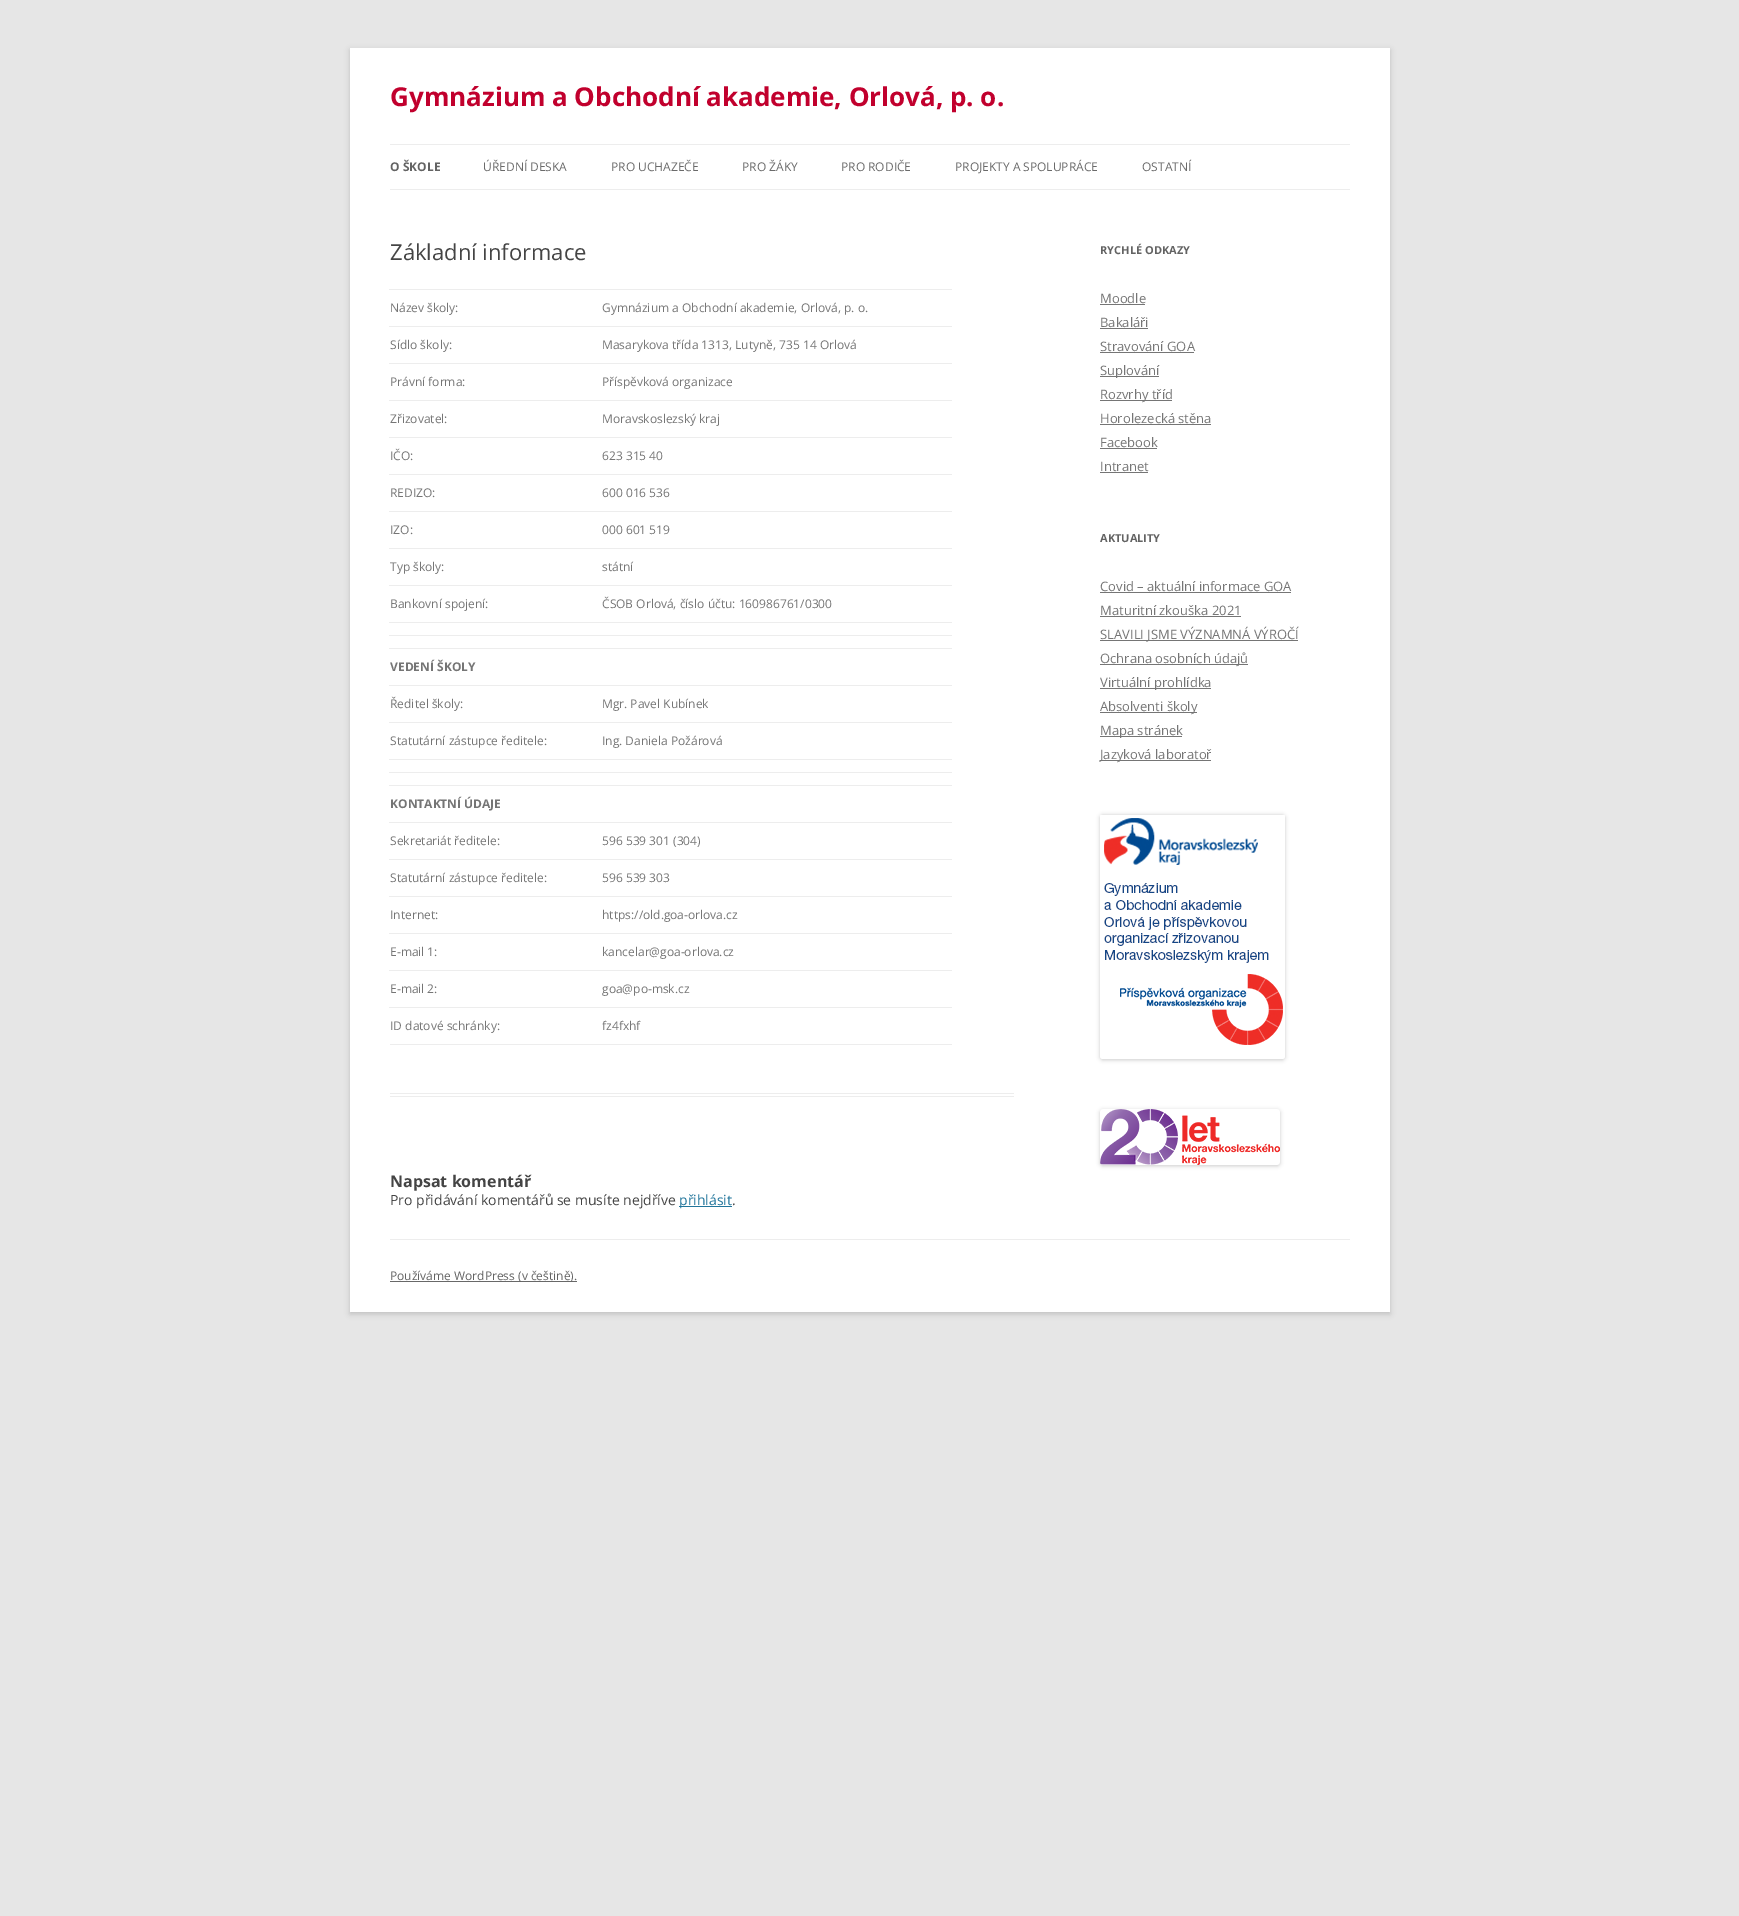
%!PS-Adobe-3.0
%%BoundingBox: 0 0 1739 1916
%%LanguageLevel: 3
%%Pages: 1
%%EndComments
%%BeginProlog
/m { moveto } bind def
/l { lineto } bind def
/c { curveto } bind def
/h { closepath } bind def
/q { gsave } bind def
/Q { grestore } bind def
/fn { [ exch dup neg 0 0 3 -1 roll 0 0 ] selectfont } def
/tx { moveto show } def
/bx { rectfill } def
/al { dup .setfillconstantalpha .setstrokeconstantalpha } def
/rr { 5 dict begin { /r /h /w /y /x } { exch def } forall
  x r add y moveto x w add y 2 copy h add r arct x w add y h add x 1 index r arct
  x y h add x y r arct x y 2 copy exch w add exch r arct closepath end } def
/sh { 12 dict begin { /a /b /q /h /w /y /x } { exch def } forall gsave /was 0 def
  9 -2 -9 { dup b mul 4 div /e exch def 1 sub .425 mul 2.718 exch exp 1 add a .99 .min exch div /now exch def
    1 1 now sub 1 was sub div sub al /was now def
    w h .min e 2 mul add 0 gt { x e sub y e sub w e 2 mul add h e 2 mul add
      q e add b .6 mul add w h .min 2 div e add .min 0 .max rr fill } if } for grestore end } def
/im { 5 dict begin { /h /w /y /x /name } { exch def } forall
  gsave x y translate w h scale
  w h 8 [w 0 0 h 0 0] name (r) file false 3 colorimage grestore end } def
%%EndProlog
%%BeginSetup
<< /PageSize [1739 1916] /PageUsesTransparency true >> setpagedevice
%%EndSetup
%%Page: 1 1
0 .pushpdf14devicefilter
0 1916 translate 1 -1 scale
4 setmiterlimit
0.902 setgray
0 0 1739 1916 bx
0.392 setgray
350 50 1040 1264 0 3 0.3 sh
1 setgray
350 48 1040 1264 bx
/OpenSans-Bold 26 fn
0.757 0 0.176 setrgbcolor
(Gymnázium a Obchodní akademie, Orlová, p. o.) 390 106 tx
0.929 setgray
390 144 960 1 bx
390 189 960 1 bx
/OpenSans-Bold 12 fn
0.388 setgray
(O ŠKOLE) 390 171 tx
/OpenSans-Regular 12 fn
0.416 setgray
(ÚŘEDNÍ DESKA) 483 171 tx
(PRO UCHAZEČE) 611 171 tx
(PRO ŽÁKY) 742 171 tx
(PRO RODIČE) 841 171 tx
(PROJEKTY A SPOLUPRÁCE) 955 171 tx
(OSTATNÍ) 1142 171 tx
0.929 setgray
390 1093 624 1 bx
390 1096 624 1 bx
/OpenSans-Regular 22 fn
0.267 setgray
(Základní informace) 390 260 tx
0.929 setgray
390 1044 562 1 bx
/OpenSans-Regular 12 fn
0.459 setgray
(Název školy:) 390 312 tx
0.929 setgray
389 289 563 1 bx
0.459 setgray
(Gymnázium a Obchodní akademie, Orlová, p. o.) 602 312 tx
(Sídlo školy:) 390 349 tx
0.929 setgray
389 326 563 1 bx
0.459 setgray
(Masarykova třída 1313, Lutyně, 735 14 Orlová) 602 349 tx
(Právní forma:) 390 386 tx
0.929 setgray
389 363 563 1 bx
0.459 setgray
(Příspěvková organizace) 602 386 tx
(Zřizovatel:) 390 423 tx
0.929 setgray
389 400 563 1 bx
0.459 setgray
(Moravskoslezský kraj) 602 423 tx
(IČO:) 390 460 tx
0.929 setgray
389 437 563 1 bx
0.459 setgray
(623 315 40) 602 460 tx
(REDIZO:) 390 497 tx
0.929 setgray
389 474 563 1 bx
0.459 setgray
(600 016 536) 602 497 tx
(IZO:) 390 534 tx
0.929 setgray
389 511 563 1 bx
0.459 setgray
(000 601 519) 602 534 tx
(Typ školy:) 390 571 tx
0.929 setgray
389 548 563 1 bx
0.459 setgray
(státní) 602 571 tx
(Bankovní spojení:) 390 608 tx
0.929 setgray
389 585 563 1 bx
0.459 setgray
(ČSOB Orlová, číslo účtu: 160986761/0300) 602 608 tx
0.929 setgray
389 622 563 1 bx
389 635 563 1 bx
389 648 563 1 bx
/OpenSans-Bold 12 fn
0.459 setgray
(VEDENÍ ŠKOLY) 390 671 tx
/OpenSans-Regular 12 fn
(Ředitel školy:) 390 708 tx
0.929 setgray
389 685 563 1 bx
0.459 setgray
(Mgr. Pavel Kubínek) 602 708 tx
(Statutární zástupce ředitele:) 390 745 tx
0.929 setgray
389 722 563 1 bx
0.459 setgray
(Ing. Daniela Požárová) 602 745 tx
0.929 setgray
389 759 563 1 bx
389 772 563 1 bx
389 785 563 1 bx
/OpenSans-Bold 12 fn
0.459 setgray
(KONTAKTNÍ ÚDAJE) 390 808 tx
/OpenSans-Regular 12 fn
(Sekretariát ředitele:) 390 845 tx
0.929 setgray
389 822 563 1 bx
0.459 setgray
(596 539 301 \(304\)) 602 845 tx
(Statutární zástupce ředitele:) 390 882 tx
0.929 setgray
389 859 563 1 bx
0.459 setgray
(596 539 303) 602 882 tx
(Internet:) 390 919 tx
0.929 setgray
389 896 563 1 bx
0.459 setgray
(https://old.goa-orlova.cz) 602 919 tx
(E-mail 1:) 390 956 tx
0.929 setgray
389 933 563 1 bx
0.459 setgray
(kancelar@goa-orlova.cz) 602 956 tx
(E-mail 2:) 390 993 tx
0.929 setgray
389 970 563 1 bx
0.459 setgray
(goa@po-msk.cz) 602 993 tx
(ID datové schránky:) 390 1030 tx
0.929 setgray
389 1007 563 1 bx
0.459 setgray
(fz4fxhf) 602 1030 tx
/OpenSans-Bold 16 fn
0.267 setgray
(Napsat komentář) 390 1187 tx
/OpenSans-Regular 14 fn
(Pro přidávání komentářů se musíte nejdříve) 390 1205 tx
0.129 0.459 0.608 setrgbcolor
679 1206 53 1 bx
(přihlásit) 679 1205 tx
0.267 setgray
(.) 732 1205 tx
/OpenSans-Bold 11 fn
0.388 setgray
(RYCHLÉ ODKAZY) 1100 254 tx
/OpenSans-Regular 13 fn
0.459 setgray
(Moodle) 1100 303 tx
1100 304 45 1 bx
(Bakaláři) 1100 327 tx
1100 328 48 1 bx
(Stravování GOA) 1100 351 tx
1100 352 94 1 bx
1100 376 59 1 bx
(Suplování) 1100 375 tx
1100 400 72 1 bx
(Rozvrhy tříd) 1100 399 tx
(Horolezecká stěna) 1100 423 tx
1100 424 111 1 bx
(Facebook) 1100 447 tx
1100 448 57 1 bx
(Intranet) 1100 471 tx
1100 472 48 1 bx
/OpenSans-Bold 11 fn
0.388 setgray
(AKTUALITY) 1100 542 tx
/OpenSans-Regular 13 fn
0.459 setgray
(Covid – aktuální informace GOA) 1100 591 tx
1100 592 191 1 bx
(Maturitní zkouška 2021) 1100 615 tx
1100 616 141 1 bx
1100 640 198 1 bx
(SLAVILI JSME VÝZNAMNÁ VÝROČÍ) 1100 639 tx
1100 664 148 1 bx
(Ochrana osobních údajů) 1100 663 tx
1100 688 111 1 bx
(Virtuální prohlídka) 1100 687 tx
1100 712 97 1 bx
(Absolventi školy) 1100 711 tx
1100 736 82 1 bx
(Mapa stránek) 1100 735 tx
1100 760 111 1 bx
(Jazyková laboratoř) 1100 759 tx
0 setgray
1100 815 185 245 3 2 0.2 sh
(image0.raw) 1100 815 185 244 im
q
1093 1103 m 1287 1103 l 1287 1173 l 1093 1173 l h 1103 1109 m 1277 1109 l 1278.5 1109 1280 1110.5 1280 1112 c 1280 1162 l 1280 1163.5 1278.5 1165 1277 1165 c 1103 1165 l 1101.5 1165 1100 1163.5 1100 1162 c 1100 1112 l 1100 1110.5 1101.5 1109 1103 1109 c h eoclip newpath
1100 1110 180 56 3 2 0.2 sh
Q
(image1.raw) 1100 1109 180 56 im
0.929 setgray
390 1239 960 1 bx
0.408 setgray
390 1281 187 1 bx
/OpenSans-Regular 12 fn
0.388 setgray
(Používáme WordPress \(v češtině\).) 390 1280 tx
.poppdf14devicefilter showpage
%%EOF
